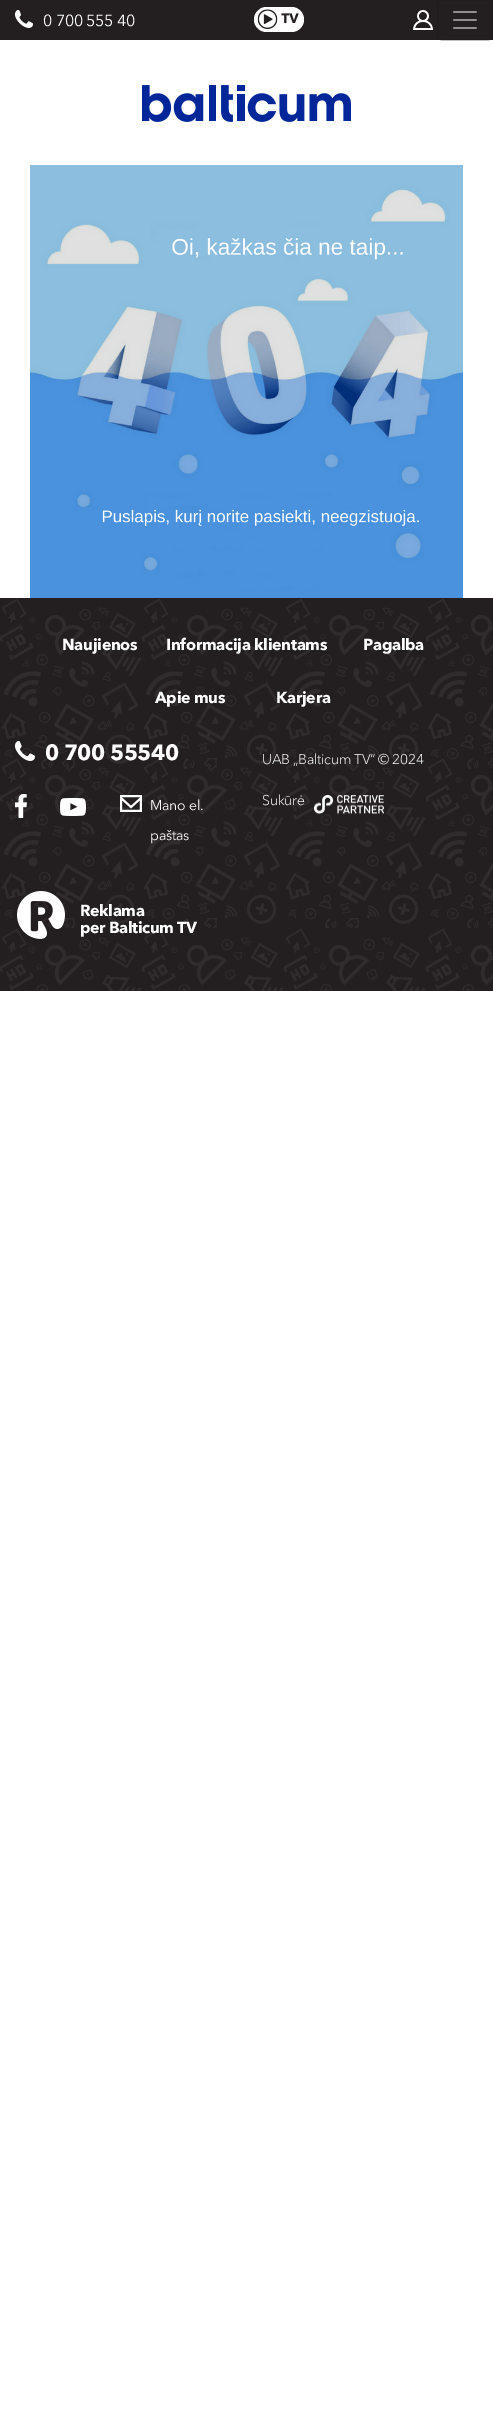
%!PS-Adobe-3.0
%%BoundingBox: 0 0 493 2409
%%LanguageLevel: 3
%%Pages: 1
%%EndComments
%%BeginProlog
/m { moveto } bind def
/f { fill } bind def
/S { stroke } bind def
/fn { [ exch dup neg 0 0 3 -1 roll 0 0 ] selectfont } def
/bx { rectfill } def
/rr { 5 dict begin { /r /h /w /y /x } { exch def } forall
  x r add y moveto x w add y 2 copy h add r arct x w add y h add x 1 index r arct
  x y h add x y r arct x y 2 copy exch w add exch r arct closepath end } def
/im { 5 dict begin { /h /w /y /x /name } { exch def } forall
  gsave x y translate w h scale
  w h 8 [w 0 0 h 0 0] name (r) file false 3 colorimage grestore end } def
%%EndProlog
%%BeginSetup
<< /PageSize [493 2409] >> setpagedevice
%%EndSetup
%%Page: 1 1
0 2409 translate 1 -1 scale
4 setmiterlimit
1 setgray
0 0 493 2409 bx
0.137 0.122 0.125 setrgbcolor
0 0 493 40 bx
(image0.raw) 15 10 18 18 im
/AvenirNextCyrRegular-Regular 16 fn
1 setgray
43 26 m -0.3 0 (0 700 555 40) ashow
254 7 50 25 12.5 rr f
(image1.raw) 257 9 42 20 im
(image2.raw) 413 10 20 20 im
0.125 0.11 0.114 setrgbcolor
437.5 0.5 55 39 3.5 rr S
(image3.raw) 453 11 24 18 im
(image4.raw) 142 85 209 37 im
(image5.raw) 30 165 433 433 im
0.137 0.122 0.125 setrgbcolor
0 598 493 393 bx
(image6.raw) 0 599 493 392 im
/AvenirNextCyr-Bold 16 fn
1 setgray
62 650 m -0.3 0 (Naujienos) ashow
166 650 m -0.3 0 (Informacija klientams) ashow
363 650 m -0.3 0 (Pagalba) ashow
155 703 m -0.3 0 (Apie mus) ashow
276 703 m -0.3 0 (Karjera) ashow
(image7.raw) 15 741 20 20 im
/AvenirNextCyr-Bold 22 fn
45 760 m -0.5 0 (0 700 55540) ashow
(image8.raw) 15 794 12 24 im
(image9.raw) 60 798 26 18 im
(image10.raw) 120 795 22 17 im
/AvenirNextCyrRegular-Regular 14 fn
150 810 m -0.25 0 (Mano el.) ashow
150 840 m -0.25 0 (paštas) ashow
(image11.raw) 17 891 48 48 im
/AvenirNextCyr-Bold 16 fn
80 916 m -0.4 0 (Reklama) ashow
80 933 m -0.4 0 (per Balticum TV) ashow
/AvenirNextCyr-Light 14 fn
262 764 m -0.25 0 (UAB „Balticum TV“ © 2024) ashow
262 805 m -0.25 0 (Sukūrė) ashow
(image12.raw) 314 795 70 19 im
showpage
%%EOF
